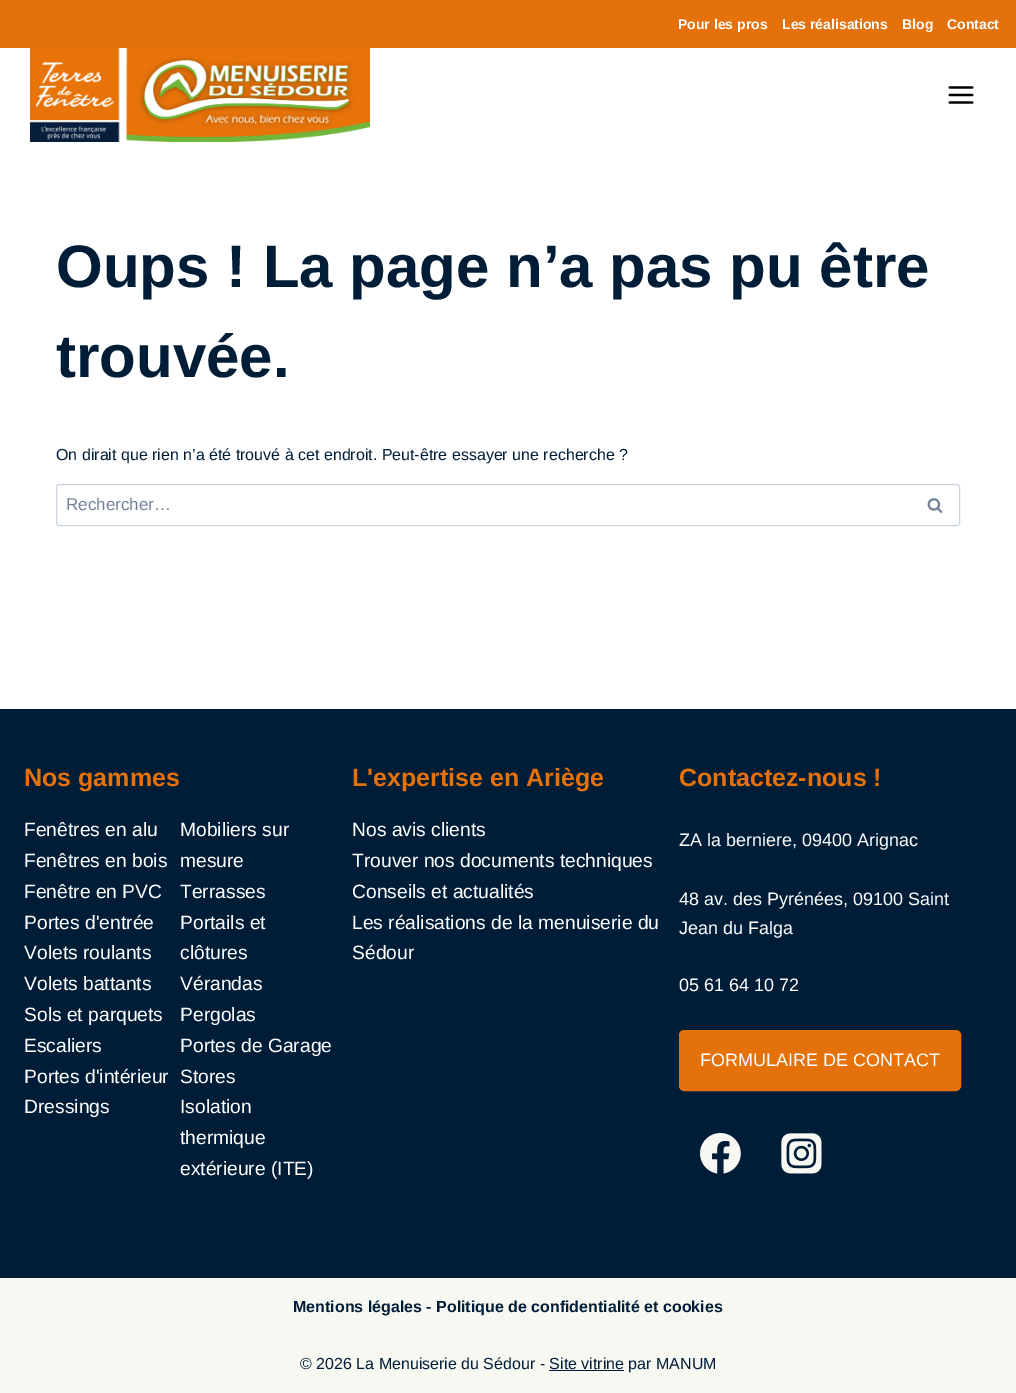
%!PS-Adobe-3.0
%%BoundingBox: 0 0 1016 1393
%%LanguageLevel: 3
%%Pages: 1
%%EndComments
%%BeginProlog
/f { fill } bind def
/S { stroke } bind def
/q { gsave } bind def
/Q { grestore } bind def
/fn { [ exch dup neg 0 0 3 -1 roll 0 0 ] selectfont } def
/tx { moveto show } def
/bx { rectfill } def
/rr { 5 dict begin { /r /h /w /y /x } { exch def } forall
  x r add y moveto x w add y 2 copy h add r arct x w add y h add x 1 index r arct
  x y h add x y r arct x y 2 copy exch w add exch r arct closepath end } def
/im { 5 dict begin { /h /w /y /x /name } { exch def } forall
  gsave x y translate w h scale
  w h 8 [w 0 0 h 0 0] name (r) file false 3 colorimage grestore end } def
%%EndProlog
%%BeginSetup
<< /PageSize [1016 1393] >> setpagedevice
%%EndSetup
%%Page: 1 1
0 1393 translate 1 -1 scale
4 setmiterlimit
1 setgray
0 0 1016 1393 bx
0.898 0.443 0.039 setrgbcolor
0 0 1016 48 bx
/LiberationSans-Bold 14 fn
1 setgray
(Pour les pros) 678 29 tx
(Les réalisations) 782 29 tx
(Blog) 902 29 tx
(Contact) 947 29 tx
(image0.raw) 30 48 340 94 im
(image1.raw) 948 86 26 18 im
/LiberationSans-Bold 60 fn
0 0.114 0.22 setrgbcolor
(Oups ! La page n’a pas pu être) 56 287 tx
(trouvée.) 56 377 tx
/LiberationSans-Regular 16 fn
(On dirait que rien n’a été trouvé à cet endroit. Peut-être essayer une recherche ?) 56 460 tx
0.796 0.835 0.878 setrgbcolor
56.5 484.5 903 41 2.5 rr S
/LiberationSans-Regular 17 fn
0.443 0.502 0.588 setrgbcolor
(Rechercher…) 66 510 tx
(image2.raw) 927 498 16 15 im
0 0.114 0.22 setrgbcolor
0 709 1016 569 bx
/LiberationSans-Bold 25 fn
0.898 0.443 0.039 setrgbcolor
(Nos gammes) 24 786 tx
/LiberationSans-Regular 19.25 fn
1 setgray
(Fenêtres en alu) 24 836 tx
(Fenêtres en bois) 24 867 tx
(Fenêtre en PVC) 24 898 tx
(Portes d'entrée) 24 929 tx
(Volets roulants) 24 959 tx
(Volets battants) 24 990 tx
(Sols et parquets) 24 1021 tx
(Escaliers) 24 1052 tx
(Portes d'intérieur) 24 1083 tx
(Dressings) 24 1113 tx
(Mobiliers sur) 180 836 tx
(mesure) 180 867 tx
(Terrasses) 180 898 tx
(Portails et) 180 929 tx
(clôtures) 180 959 tx
(Vérandas) 180 990 tx
(Pergolas) 180 1021 tx
(Portes de Garage) 180 1052 tx
(Stores) 180 1083 tx
(Isolation) 180 1113 tx
(thermique) 180 1144 tx
(extérieure \(ITE\)) 180 1175 tx
/LiberationSans-Bold 25 fn
0.898 0.443 0.039 setrgbcolor
(L'expertise en Ariège) 352 786 tx
/LiberationSans-Regular 19.25 fn
1 setgray
(Nos avis clients) 352 836 tx
(Trouver nos documents techniques) 352 867 tx
(Conseils et actualités) 352 898 tx
(Les réalisations de la menuiserie du) 352 929 tx
(Sédour) 352 959 tx
/LiberationSans-Bold 25 fn
0.898 0.443 0.039 setrgbcolor
(Contactez-nous !) 679 786 tx
/LiberationSans-Regular 18 fn
1 setgray
(ZA la berniere, 09400 Arignac) 679 846 tx
(48 av. des Pyrénées, 09100 Saint) 679 905 tx
(Jean du Falga) 679 934 tx
(05 61 64 10 72) 679 991 tx
0.898 0.443 0.039 setrgbcolor
679.5 1030.5 281 60 4.5 rr q f Q
S
1 setgray
(FORMULAIRE DE CONTACT) 700 1066 tx
(image3.raw) 700 1133 41 41 im
(image4.raw) 781 1133 41 41 im
0.973 0.973 0.949 setrgbcolor
0 1278 1016 115 bx
/LiberationSans-Bold 16 fn
0 0.114 0.22 setrgbcolor
(Mentions légales - Politique de confidentialité et cookies) 293 1312 tx
/LiberationSans-Regular 16 fn
(© 2026 La Menuiserie du Sédour - Site vitrine par MANUM) 300 1369 tx
549 1370 75 1 bx
showpage
%%EOF
